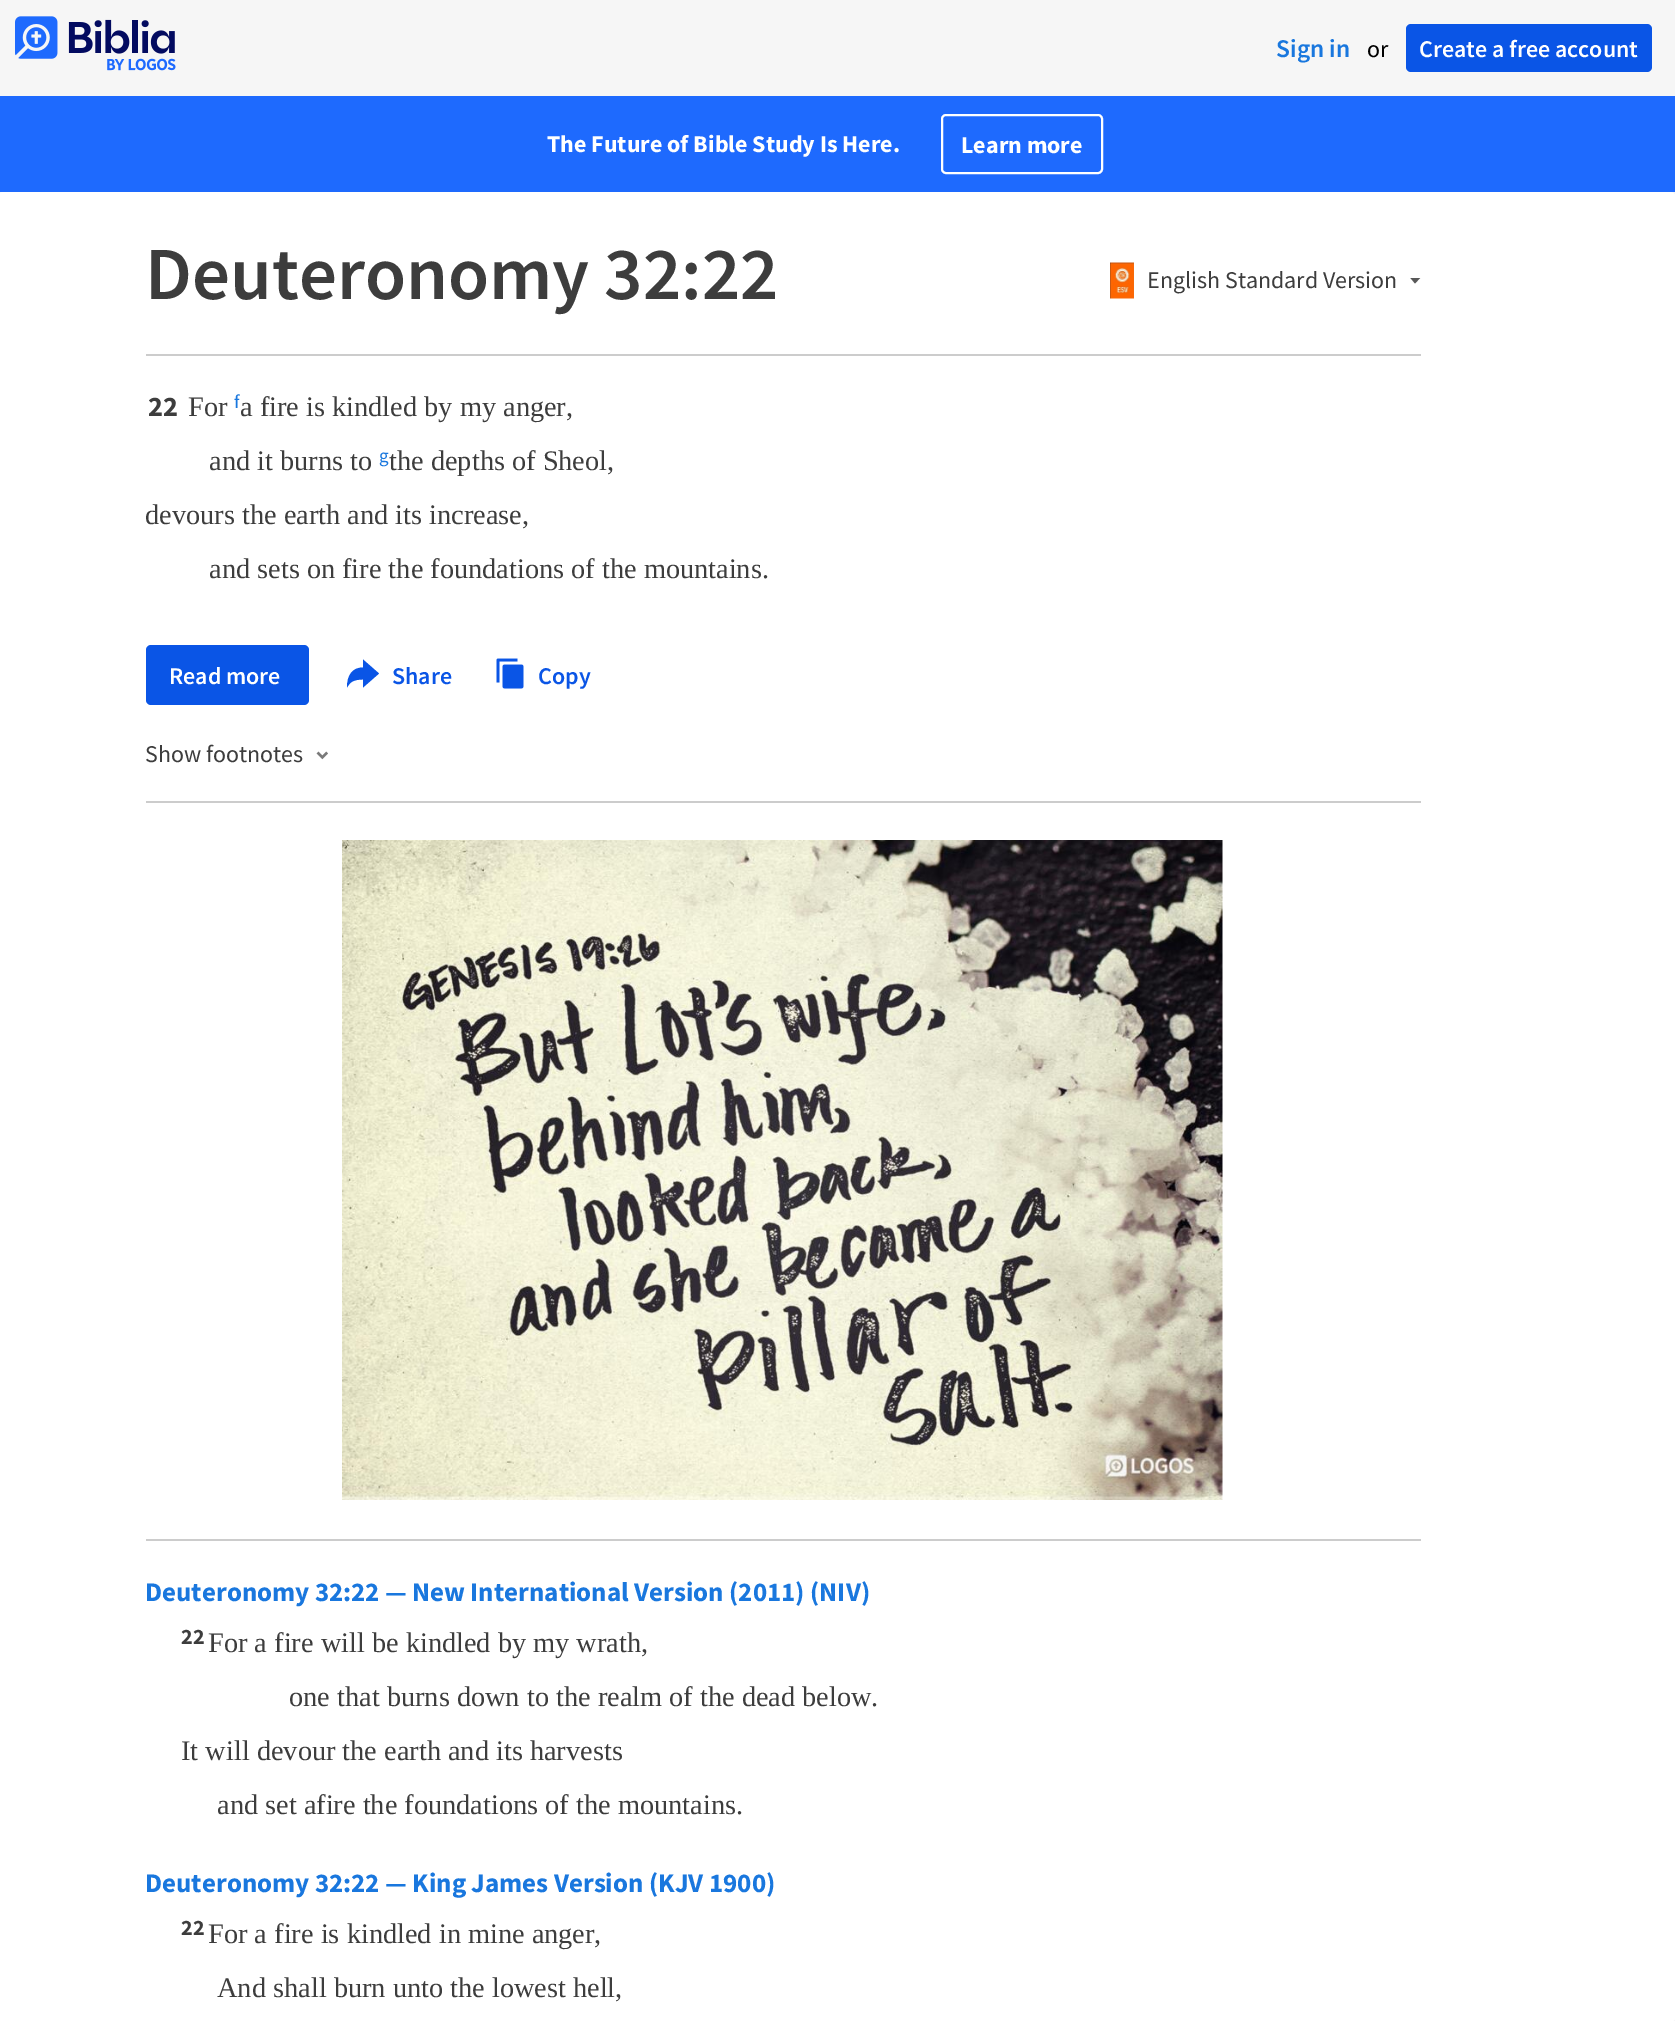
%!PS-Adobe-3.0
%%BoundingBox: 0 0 1675 2021
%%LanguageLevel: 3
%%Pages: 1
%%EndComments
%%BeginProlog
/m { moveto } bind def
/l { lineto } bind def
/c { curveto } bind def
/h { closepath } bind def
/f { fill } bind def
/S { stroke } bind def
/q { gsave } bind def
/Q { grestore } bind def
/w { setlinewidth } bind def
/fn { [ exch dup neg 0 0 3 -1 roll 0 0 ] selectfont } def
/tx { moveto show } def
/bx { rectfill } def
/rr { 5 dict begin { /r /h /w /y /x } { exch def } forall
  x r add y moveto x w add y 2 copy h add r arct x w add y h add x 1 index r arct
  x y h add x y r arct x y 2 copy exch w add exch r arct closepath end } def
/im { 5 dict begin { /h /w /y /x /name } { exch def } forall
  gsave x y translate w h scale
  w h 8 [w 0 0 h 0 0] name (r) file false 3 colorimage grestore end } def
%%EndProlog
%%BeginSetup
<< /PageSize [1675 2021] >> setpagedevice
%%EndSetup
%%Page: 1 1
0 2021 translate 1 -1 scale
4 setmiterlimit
0.965 setgray
0 0 1675 2021 bx
(image0.raw) 15 16 161 55 im
/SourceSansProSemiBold-SemiBold 25.5 fn
0.098 0.467 0.871 setrgbcolor
(Sign in) 1276 57 tx
/SourceSansPro-Regular 24 fn
0 setgray
(or) 1367 57 tx
0.039 0.333 0.902 setrgbcolor
1406 24 246 48 5 rr f
/SourceSansProSemiBold-SemiBold 24 fn
1 setgray
(Create a free account) 1419 57 tx
0.118 0.416 0.996 setrgbcolor
0 96 1675 96 bx
/SourceSansPro-Bold 24 fn
1 setgray
(The Future of Bible Study Is Here.) 547 152 tx
2 w
942 115 160 58 4 rr S
(Learn more) 961 153 tx
-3 192 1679 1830 6 rr f
0.8 setgray
146 354 1275 2 bx
/SourceSansProSemiBold-SemiBold 75 fn
0.239 setgray
(Deuteronomy 32:22) 145 299 tx
(image1.raw) 1110 262 24 37 im
/SourceSansPro-Regular 24 fn
(English Standard Version) 1147 288 tx
q
1410 278 11 6 rectclip
0.345 setgray
1415 283.5 m 1420.5 277.5 l 1410 277.5 l h eofill
Q
/SourceSansPro-Bold 28.35 fn
(22) 148 416 tx
/LiberationSerif-Regular 28.35 fn
(For) 188 416 tx
/SourceSansPro-Regular 19 fn
0.098 0.467 0.871 setrgbcolor
(f) 234 408 tx
/LiberationSerif-Regular 28.35 fn
0.239 setgray
(a fire is kindled by my anger,) 240 416 tx
(and it burns to) 209 470 tx
/SourceSansPro-Regular 19 fn
0.098 0.467 0.871 setrgbcolor
(g) 379 462 tx
/LiberationSerif-Regular 28.35 fn
0.239 setgray
(the depths of Sheol,) 389 470 tx
(devours the earth and its increase,) 145 524 tx
(and sets on fire the foundations of the mountains.) 209 578 tx
0.039 0.333 0.902 setrgbcolor
146 645 163 60 5 rr f
/SourceSansProSemiBold-SemiBold 24 fn
1 setgray
(Read more) 169 684 tx
0.039 0.333 0.902 setrgbcolor
(Share) 392 684 tx
363 667.5 m 363 659.5 l 379 673.5 l 363 687.5 l 363 679.5 l 352.5 679.5 350 682.5 347 687.5 c 347 675 352.5 667.5 363 667.5 c h eofill
(image2.raw) 496 658 28 31 im
(Copy) 538 684 tx
/SourceSansPro-Regular 24 fn
0.239 setgray
(Show footnotes) 145 762 tx
(image3.raw) 316 751 12 9 im
0.8 setgray
146 801 1275 2 bx
(image4.raw) 342 840 881 660 im
146 1539 1275 2 bx
/SourceSansPro-Bold 27 fn
0.098 0.467 0.871 setrgbcolor
(Deuteronomy 32:22 — New International Version \(2011\) \(NIV\)) 145 1601 tx
/SourceSansPro-Bold 22 fn
0.239 setgray
(22) 181 1644 tx
/LiberationSerif-Regular 28.35 fn
(For a fire will be kindled by my wrath,) 208 1652 tx
(one that burns down to the realm of the dead below.) 289 1706 tx
(It will devour the earth and its harvests) 181 1760 tx
(and set afire the foundations of the mountains.) 217 1814 tx
/SourceSansPro-Bold 27 fn
0.098 0.467 0.871 setrgbcolor
(Deuteronomy 32:22 — King James Version \(KJV 1900\)) 145 1892 tx
/SourceSansPro-Bold 22 fn
0.239 setgray
(22) 181 1935 tx
/LiberationSerif-Regular 28.35 fn
(For a fire is kindled in mine anger,) 208 1943 tx
(And shall burn unto the lowest hell,) 217 1997 tx
showpage
%%EOF
